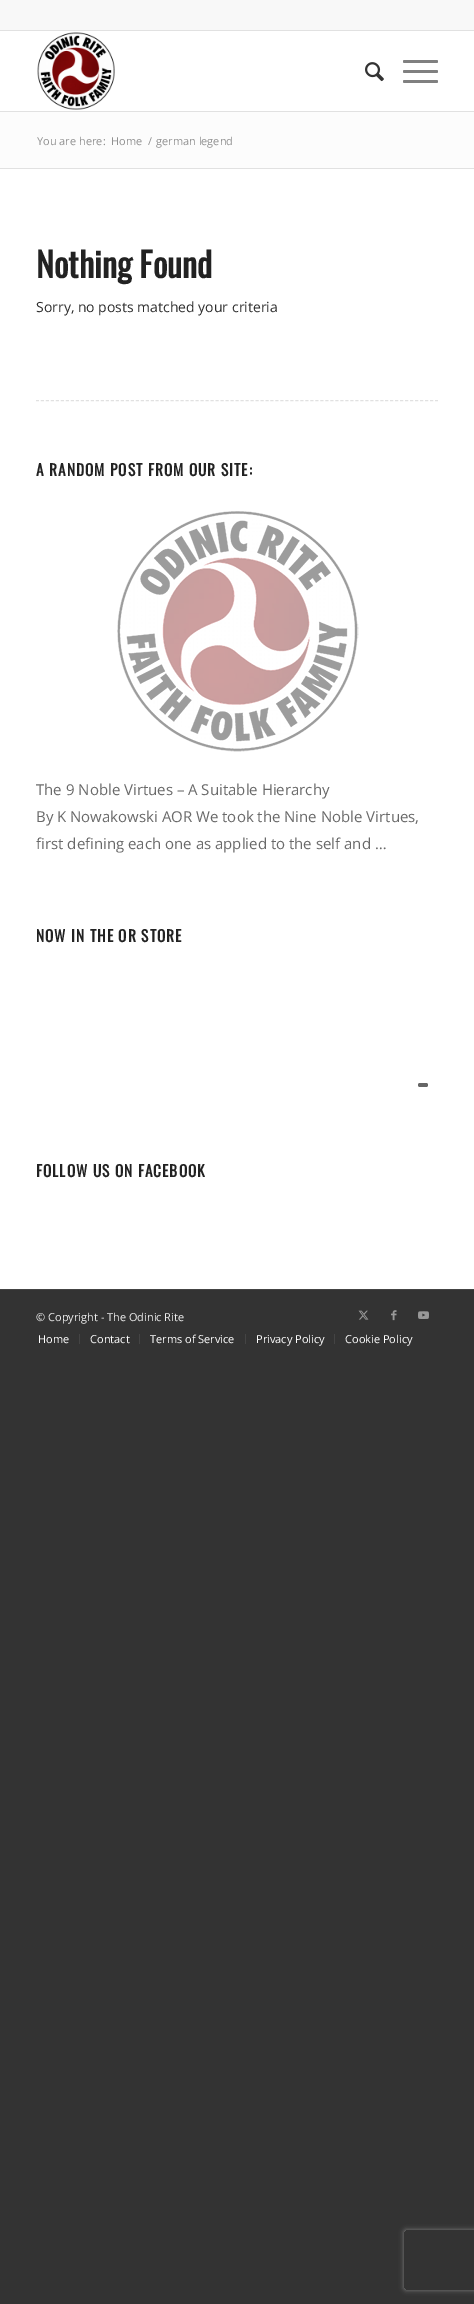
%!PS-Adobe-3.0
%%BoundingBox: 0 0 474 2304
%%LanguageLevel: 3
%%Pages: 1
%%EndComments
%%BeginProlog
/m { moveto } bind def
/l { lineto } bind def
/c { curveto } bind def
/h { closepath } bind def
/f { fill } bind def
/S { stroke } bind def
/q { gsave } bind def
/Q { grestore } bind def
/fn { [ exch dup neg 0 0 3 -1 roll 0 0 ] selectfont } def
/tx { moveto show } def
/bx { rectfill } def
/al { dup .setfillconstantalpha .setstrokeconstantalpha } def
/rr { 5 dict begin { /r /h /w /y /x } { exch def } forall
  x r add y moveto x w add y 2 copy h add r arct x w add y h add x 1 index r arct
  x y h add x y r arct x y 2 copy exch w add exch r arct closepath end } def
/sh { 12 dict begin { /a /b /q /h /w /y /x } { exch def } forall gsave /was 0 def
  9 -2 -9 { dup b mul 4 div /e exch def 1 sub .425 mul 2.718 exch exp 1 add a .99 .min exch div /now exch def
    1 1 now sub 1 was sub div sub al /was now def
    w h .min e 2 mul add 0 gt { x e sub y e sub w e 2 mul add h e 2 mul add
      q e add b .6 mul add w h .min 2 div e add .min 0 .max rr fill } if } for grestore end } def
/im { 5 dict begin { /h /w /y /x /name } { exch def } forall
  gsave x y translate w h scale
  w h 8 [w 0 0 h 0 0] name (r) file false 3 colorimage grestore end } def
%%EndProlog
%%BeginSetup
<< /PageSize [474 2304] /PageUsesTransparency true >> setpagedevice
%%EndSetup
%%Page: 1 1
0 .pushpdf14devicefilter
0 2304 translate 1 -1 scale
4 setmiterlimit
0.2 setgray
0 0 474 2304 bx
1 setgray
0 31 474 1258 bx
0.973 setgray
0 0 474 30 bx
0.882 setgray
0 30 474 1 bx
0 111 474 1 bx
(image0.raw) 37 32 78 78 im
(image1.raw) 365 62 19 20 im
0.502 setgray
403 70 35 3 1.5 rr f
403 60 35 3 1.5 rr f
403 80 35 3 1.5 rr f
0.988 setgray
0 112 474 56 bx
/OpenSans-Regular 11 fn
0.569 setgray
(You are here:) 37 145 tx
(Home) 111 145 tx
(/) 148 145 tx
(german legend) 156 145 tx
0.882 setgray
0 168 474 1 bx
/Oswald-Bold 34 fn
0.133 setgray
(Nothing Found) 36 278 tx
/OpenSans-Regular 14 fn
0.18 setgray
(Sorry, no posts matched your criteria) 36 312 tx
0.882 setgray
[3 1.99] 0 setdash
36 400.5 m 438 400.5 l S
/Oswald-Bold 15.4 fn
0.133 setgray
36 476 m 1 0 (A RANDOM POST FROM OUR SITE:) ashow
(image2.raw) 117 511 242 241 im
/OpenSans-Regular 15 fn
0.412 setgray
(The 9 Noble Virtues – A Suitable Hierarchy) 36 795 tx
(By K Nowakowski AOR We took the Nine Noble Virtues,) 36 822 tx
(first defining each one as applied to the self and …) 36 849 tx
/Oswald-Bold 15.4 fn
0.133 setgray
36 942 m 1 0 (NOW IN THE OR STORE) ashow
0.4 setgray
418 1083 10 4 2 rr f
0.133 setgray
36 1177 m 1 0 (FOLLOW US ON FACEBOOK) ashow
0.267 setgray
0 1289 474 1 bx
/OpenSans-Regular 11 fn
0.933 setgray
(© Copyright - The Odinic Rite) 36 1321 tx
(image3.raw) 358 1310 11 10 im
(image4.raw) 391 1310 6 11 im
(image5.raw) 418 1311 11 8 im
1 setgray
(Home) 38 1343 tx
0.267 setgray
79 1334 1 10 bx
1 setgray
(Contact) 90 1343 tx
0.267 setgray
139 1334 1 10 bx
1 setgray
(Terms of Service) 150 1343 tx
0.267 setgray
245 1334 1 10 bx
1 setgray
(Privacy Policy) 256 1343 tx
0.267 setgray
334 1334 1 10 bx
1 setgray
(Cookie Policy) 345 1343 tx
q
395 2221 m 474 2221 l 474 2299 l 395 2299 l h 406 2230 m 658 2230 l 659 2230 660 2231 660 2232 c 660 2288 l 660 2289 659 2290 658 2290 c 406 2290 l 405 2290 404 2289 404 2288 c 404 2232 l 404 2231 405 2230 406 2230 c h eoclip newpath
0.502 setgray
404 2230 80 60 2 2.5 1 sh
Q
.poppdf14devicefilter showpage
%%EOF
